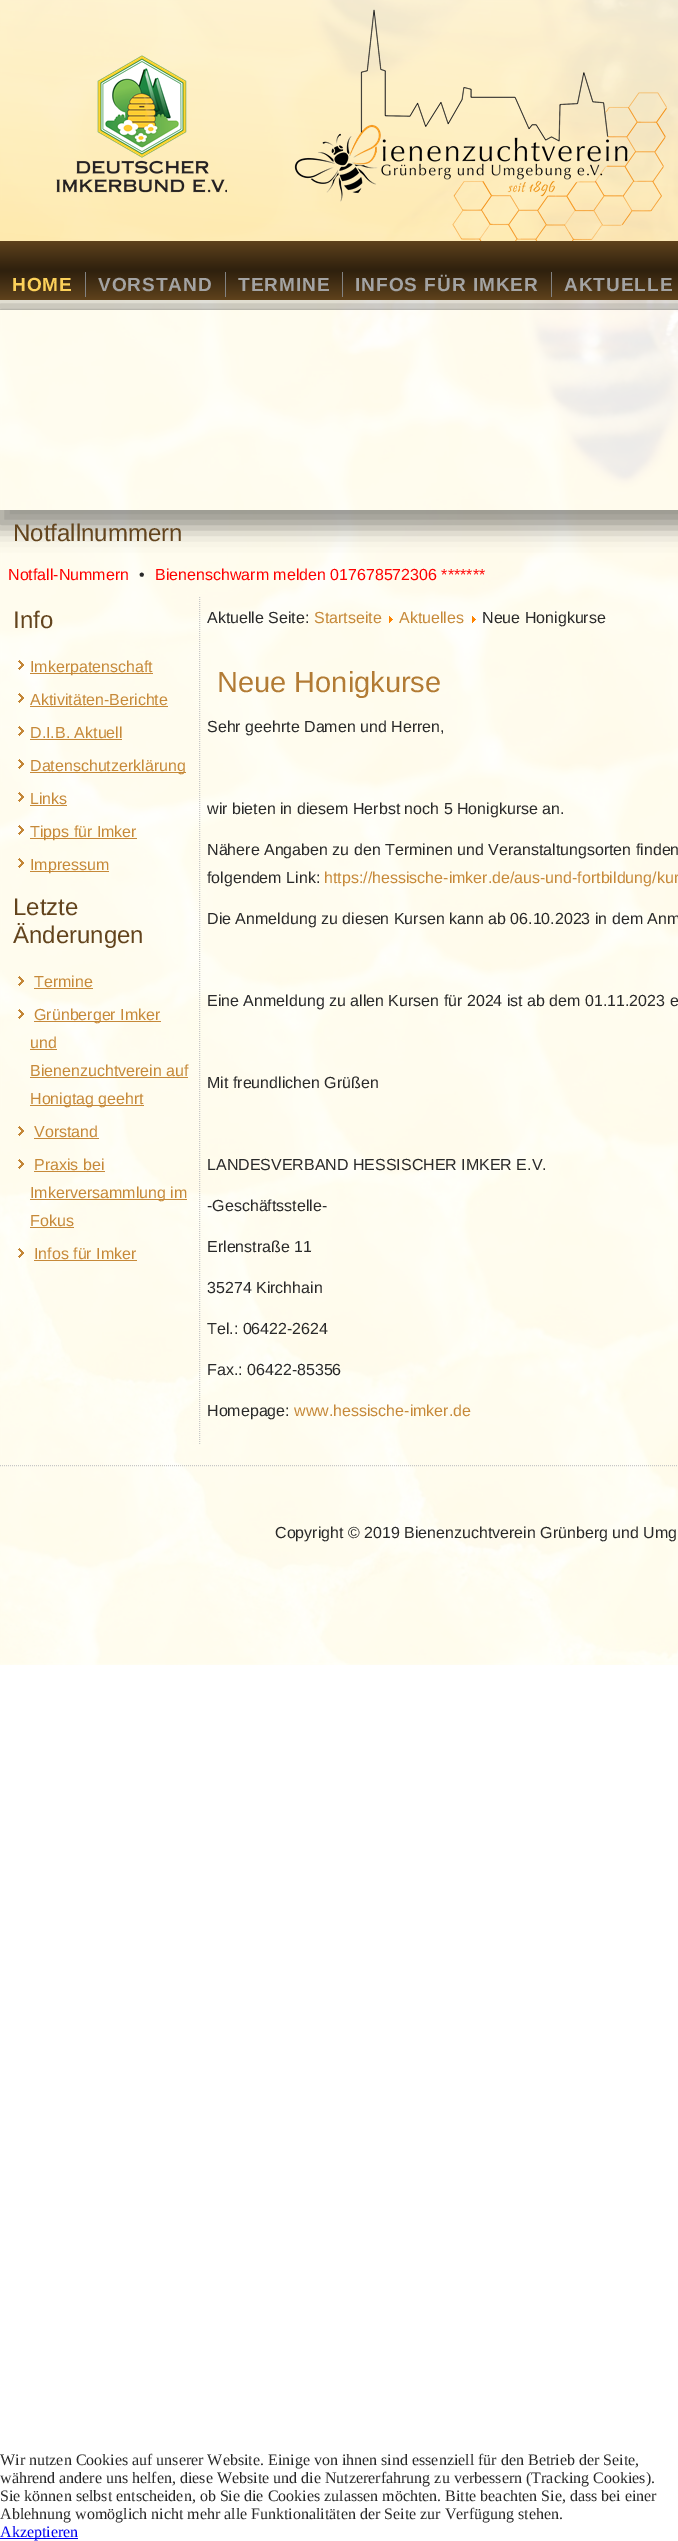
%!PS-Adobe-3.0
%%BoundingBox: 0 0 678 2541
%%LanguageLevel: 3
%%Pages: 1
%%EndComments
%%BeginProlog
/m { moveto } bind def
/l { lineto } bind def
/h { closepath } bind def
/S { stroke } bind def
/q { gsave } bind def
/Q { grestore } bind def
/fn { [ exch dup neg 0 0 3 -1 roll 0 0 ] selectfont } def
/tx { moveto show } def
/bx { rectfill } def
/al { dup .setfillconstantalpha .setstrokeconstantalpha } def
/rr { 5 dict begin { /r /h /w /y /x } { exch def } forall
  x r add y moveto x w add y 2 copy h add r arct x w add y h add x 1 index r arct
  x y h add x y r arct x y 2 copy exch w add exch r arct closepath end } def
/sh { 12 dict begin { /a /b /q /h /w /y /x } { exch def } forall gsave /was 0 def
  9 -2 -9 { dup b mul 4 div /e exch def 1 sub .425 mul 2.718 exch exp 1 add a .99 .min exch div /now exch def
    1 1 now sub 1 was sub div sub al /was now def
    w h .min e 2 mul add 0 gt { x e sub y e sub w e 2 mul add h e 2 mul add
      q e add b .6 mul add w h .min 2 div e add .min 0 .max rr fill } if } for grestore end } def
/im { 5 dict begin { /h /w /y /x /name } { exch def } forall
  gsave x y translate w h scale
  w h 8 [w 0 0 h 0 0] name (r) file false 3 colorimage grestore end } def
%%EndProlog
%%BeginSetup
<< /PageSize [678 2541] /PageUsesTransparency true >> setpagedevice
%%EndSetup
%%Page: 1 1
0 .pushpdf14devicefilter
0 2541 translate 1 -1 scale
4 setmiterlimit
1 setgray
0 0 678 2541 bx
(image0.raw) 0 0 678 1665 im
q
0 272 m 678 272 l 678 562 l 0 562 l h 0 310 m 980 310 l 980 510 l 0 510 l h eoclip newpath
0 setgray
-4 306 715 222 0 11 0.4 sh
Q
(image1.raw) 0 0 678 241 im
q 0 241 m 678 241 l 678 300 l 0 300 l h clip newpath
<< /ShadingType 2 /ColorSpace /DeviceRGB /Coords [490 241 490 300] /Extend [true true] /Function << /FunctionType 3 /Domain [0 1] /Functions [<< /FunctionType 2 /Domain [0 1] /C0 [0.373 0.259 0.11] /C1 [0.216 0.149 0.063] /N 1 >> << /FunctionType 2 /Domain [0 1] /C0 [0.216 0.149 0.063] /C1 [0.184 0.129 0.055] /N 1 >> << /FunctionType 2 /Domain [0 1] /C0 [0.184 0.129 0.055] /C1 [0.216 0.149 0.063] /N 1 >> << /FunctionType 2 /Domain [0 1] /C0 [0.216 0.149 0.063] /C1 [0.373 0.259 0.11] /N 1 >>] /Bounds [0.4 0.5 0.6] /Encode [0 1 0 1 0 1 0 1] >> >> shfill Q
/LiberationSans-Bold 19 fn
0.988 0.82 0.353 setrgbcolor
12 291 m 1 0 (HOME) ashow
0.51 setgray
85 272 1 25 bx
0.639 setgray
98 291 m 1 0 (VORSTAND) ashow
0.51 setgray
225 272 1 25 bx
0.639 setgray
238 291 m 1 0 (TERMINE) ashow
0.51 setgray
342 272 1 25 bx
0.639 setgray
355 291 m 1 0 (INFOS FÜR IMKER) ashow
0.51 setgray
551 272 1 25 bx
0.639 setgray
564 291 m 1 0 (AKTUELLE) ashow
/LiberationSans-Regular 24 fn
0.388 0.267 0.114 setrgbcolor
(Notfallnummern) 13 541 tx
/LiberationSans-Regular 16 fn
1 0 0 setrgbcolor
(Notfall-Nummern) 8 580 tx
0.161 setgray
(•) 139 580 tx
1 0 0 setrgbcolor
(Bienenschwarm melden 017678572306 *******) 155 580 tx
0.78 setgray
[1 1] 0 setdash
199.5 597 m 199.5 1445 l S
/LiberationSans-Regular 24 fn
0.388 0.267 0.114 setrgbcolor
(Info) 13 628 tx
(image2.raw) 18 660 6 10 im
0.776 0.537 0.224 setrgbcolor
30 673 123 1 bx
/LiberationSans-Regular 16 fn
(Imkerpatenschaft) 30 672 tx
(image3.raw) 18 693 6 10 im
(Aktivitäten-Berichte) 30 705 tx
30 706 138 1 bx
(image4.raw) 18 726 6 10 im
(D.I.B. Aktuell) 30 738 tx
30 739 92 1 bx
(image5.raw) 18 759 6 10 im
30 772 156 1 bx
(Datenschutzerklärung) 30 771 tx
(image6.raw) 18 792 6 10 im
(Links) 30 804 tx
30 805 37 1 bx
(image7.raw) 18 825 6 10 im
30 838 107 1 bx
(Tipps für Imker) 30 837 tx
(image8.raw) 18 858 6 10 im
30 871 79 1 bx
(Impressum) 30 870 tx
/LiberationSans-Regular 24 fn
0.388 0.267 0.114 setrgbcolor
(Letzte) 13 915 tx
(Änderungen) 13 943 tx
(image9.raw) 18 976 6 10 im
/LiberationSans-Regular 16 fn
0.776 0.537 0.224 setrgbcolor
(Termine) 34 987 tx
34 988 59 1 bx
(image10.raw) 18 1009 6 10 im
34 1021 127 1 bx
(Grünberger Imker) 34 1020 tx
(und) 30 1048 tx
30 1049 27 1 bx
(Bienenzuchtverein auf) 30 1076 tx
30 1077 158 1 bx
30 1105 114 1 bx
(Honigtag geehrt) 30 1104 tx
(image11.raw) 18 1126 6 10 im
(Vorstand) 34 1137 tx
34 1138 65 1 bx
(image12.raw) 18 1159 6 10 im
(Praxis bei) 34 1170 tx
34 1171 71 1 bx
30 1199 157 1 bx
(Imkerversammlung im) 30 1198 tx
(Fokus) 30 1226 tx
30 1227 44 1 bx
(image13.raw) 18 1248 6 10 im
(Infos für Imker) 34 1259 tx
34 1260 103 1 bx
0.161 setgray
(Aktuelle Seite:) 207 623 tx
0.776 0.537 0.224 setrgbcolor
(Startseite) 314 623 tx
(image14.raw) 389 616 4 7 im
(Aktuelles) 399 623 tx
(image15.raw) 472 616 4 7 im
0.161 setgray
(Neue Honigkurse) 482 623 tx
/LiberationSans-Regular 29 fn
0.698 0.482 0.204 setrgbcolor
(Neue Honigkurse) 217 692 tx
/LiberationSans-Regular 16 fn
0.161 setgray
(Sehr geehrte Damen und Herren,) 207 732 tx
(wir bieten in diesem Herbst noch 5 Honigkurse an.) 207 814 tx
(Nähere Angaben zu den Terminen und Veranstaltungsorten finden) 207 855 tx
(folgendem Link:) 207 883 tx
0.776 0.537 0.224 setrgbcolor
(https://hessische-imker.de/aus-und-fortbildung/kur) 324 883 tx
0.161 setgray
(Die Anmeldung zu diesen Kursen kann ab 06.10.2023 in dem Anm) 207 924 tx
(Eine Anmeldung zu allen Kursen für 2024 ist ab dem 01.11.2023 e) 207 1006 tx
(Mit freundlichen Grüßen) 207 1088 tx
(LANDESVERBAND HESSISCHER IMKER E.V.) 207 1170 tx
(-Geschäftsstelle-) 207 1211 tx
(Erlenstraße 11) 207 1252 tx
(35274 Kirchhain) 207 1293 tx
(Tel.: 06422-2624) 207 1334 tx
(Fax.: 06422-85356) 207 1375 tx
(Homepage:) 207 1416 tx
0.776 0.537 0.224 setrgbcolor
(www.hessische-imker.de) 294 1416 tx
0.78 setgray
0 1465.5 m 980 1465.5 l S
0.161 setgray
(Copyright © 2019 Bienenzuchtverein Grünberg und Umg) 275 1538 tx
/LiberationSerif-Regular 16 fn
(Wir nutzen Cookies auf unserer Website. Einige von ihnen sind essenziell für den Betrieb der Seite,) 0 2465 tx
(während andere uns helfen, diese Website und die Nutzererfahrung zu verbessern \(Tracking Cookies\).) 0 2483 tx
(Sie können selbst entscheiden, ob Sie die Cookies zulassen möchten. Bitte beachten Sie, dass bei einer) 0 2501 tx
(Ablehnung womöglich nicht mehr alle Funktionalitäten der Seite zur Verfügung stehen.) 0 2519 tx
0 0 0.933 setrgbcolor
0 2538 78 1 bx
(Akzeptieren) 0 2537 tx
.poppdf14devicefilter showpage
%%EOF
